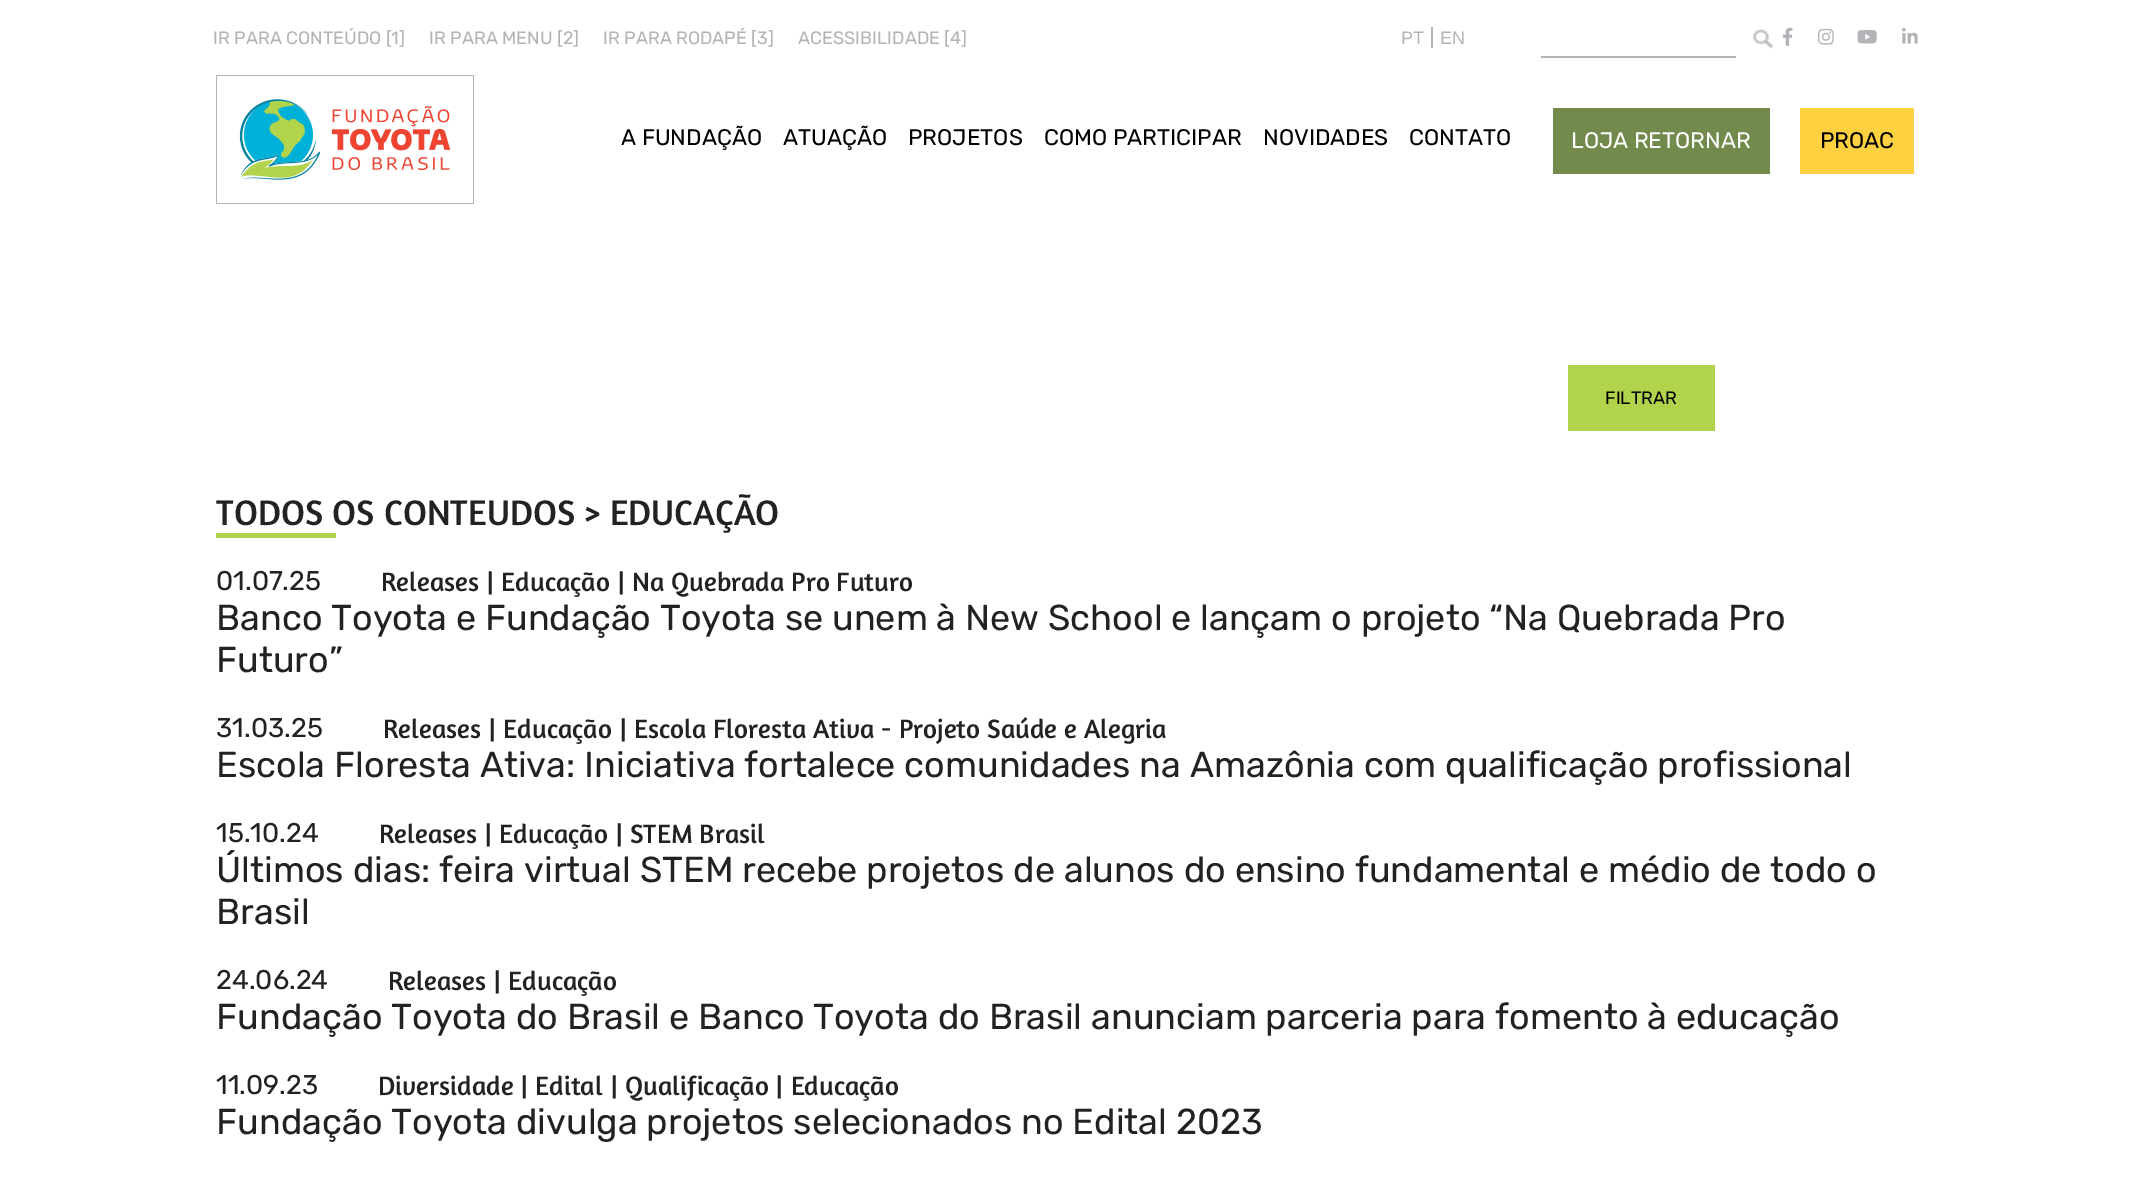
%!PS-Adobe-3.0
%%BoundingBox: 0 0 2129 1185
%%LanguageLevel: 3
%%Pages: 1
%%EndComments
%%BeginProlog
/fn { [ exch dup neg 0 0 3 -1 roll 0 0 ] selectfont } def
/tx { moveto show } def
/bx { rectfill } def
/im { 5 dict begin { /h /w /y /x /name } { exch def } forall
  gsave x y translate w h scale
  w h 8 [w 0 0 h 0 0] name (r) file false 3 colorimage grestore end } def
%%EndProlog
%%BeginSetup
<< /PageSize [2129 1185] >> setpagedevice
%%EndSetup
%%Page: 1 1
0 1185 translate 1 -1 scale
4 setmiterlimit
1 setgray
0 0 2129 1185 bx
/Rubik-Regular 18 fn
0.698 0.706 0.718 setrgbcolor
(IR PARA CONTEÚDO [1]) 213 44 tx
(IR PARA MENU [2]) 429 44 tx
(IR PARA RODAPÉ [3]) 603 44 tx
(ACESSIBILIDADE [4]) 798 44 tx
/LiberationSans-Regular 18 fn
(PT) 1401 44 tx
1431 27 2 21 bx
(EN) 1440 44 tx
(image0.raw) 1753 29 21 20 im
1541 56 195 2 bx
(image1.raw) 1782 27 11 19 im
(image2.raw) 1818 28 16 17 im
(image3.raw) 1857 30 20 14 im
(image4.raw) 1902 27 16 17 im
(image5.raw) 216 75 258 129 im
/Rubik-Regular 22.5 fn
0 setgray
(A FUNDAÇÃO) 621 145 tx
(ATUAÇÃO) 783 145 tx
(PROJETOS) 908 145 tx
(COMO PARTICIPAR) 1044 145 tx
(NOVIDADES) 1263 145 tx
(CONTATO) 1409 145 tx
0.447 0.541 0.294 setrgbcolor
1553 108 217 66 bx
1 setgray
(LOJA RETORNAR) 1571 148 tx
1 0.816 0.251 setrgbcolor
1800 108 114 66 bx
0 setgray
(PROAC) 1820 148 tx
0.698 0.827 0.298 setrgbcolor
1568 365 147 66 bx
/Rubik-Regular 18 fn
0 setgray
(FILTRAR) 1605 404 tx
/Amaranth-Regular 36 fn
0.133 setgray
(TODOS OS CONTEUDOS > EDUCAÇÃO) 216 525 tx
0.698 0.827 0.298 setrgbcolor
216 533 120 5 bx
/Rubik-Regular 27 fn
0.133 setgray
(01.07.25) 216 590 tx
/Amaranth-Regular 27 fn
(Releases | Educação | Na Quebrada Pro Futuro) 381 591 tx
/Rubik-Regular 36 fn
(Banco Toyota e Fundação Toyota se unem à New School e lançam o projeto “Na Quebrada Pro) 216 630 tx
(Futuro”) 216 672 tx
/Rubik-Regular 27 fn
(31.03.25) 216 737 tx
/Amaranth-Regular 27 fn
(Releases | Educação | Escola Floresta Ativa - Projeto Saúde e Alegria) 383 738 tx
/Rubik-Regular 36 fn
(Escola Floresta Ativa: Iniciativa fortalece comunidades na Amazônia com qualificação profissional) 216 777 tx
/Rubik-Regular 27 fn
(15.10.24) 216 842 tx
/Amaranth-Regular 27 fn
(Releases | Educação | STEM Brasil) 379 843 tx
/Rubik-Regular 36 fn
(Últimos dias: feira virtual STEM recebe projetos de alunos do ensino fundamental e médio de todo o) 216 882 tx
(Brasil) 216 924 tx
/Rubik-Regular 27 fn
(24.06.24) 216 989 tx
/Amaranth-Regular 27 fn
(Releases | Educação) 388 990 tx
/Rubik-Regular 36 fn
(Fundação Toyota do Brasil e Banco Toyota do Brasil anunciam parceria para fomento à educação) 216 1029 tx
/Rubik-Regular 27 fn
(11.09.23) 216 1094 tx
/Amaranth-Regular 27 fn
(Diversidade | Edital | Qualificação | Educação) 378 1095 tx
/Rubik-Regular 36 fn
(Fundação Toyota divulga projetos selecionados no Edital 2023) 216 1134 tx
showpage
%%EOF
